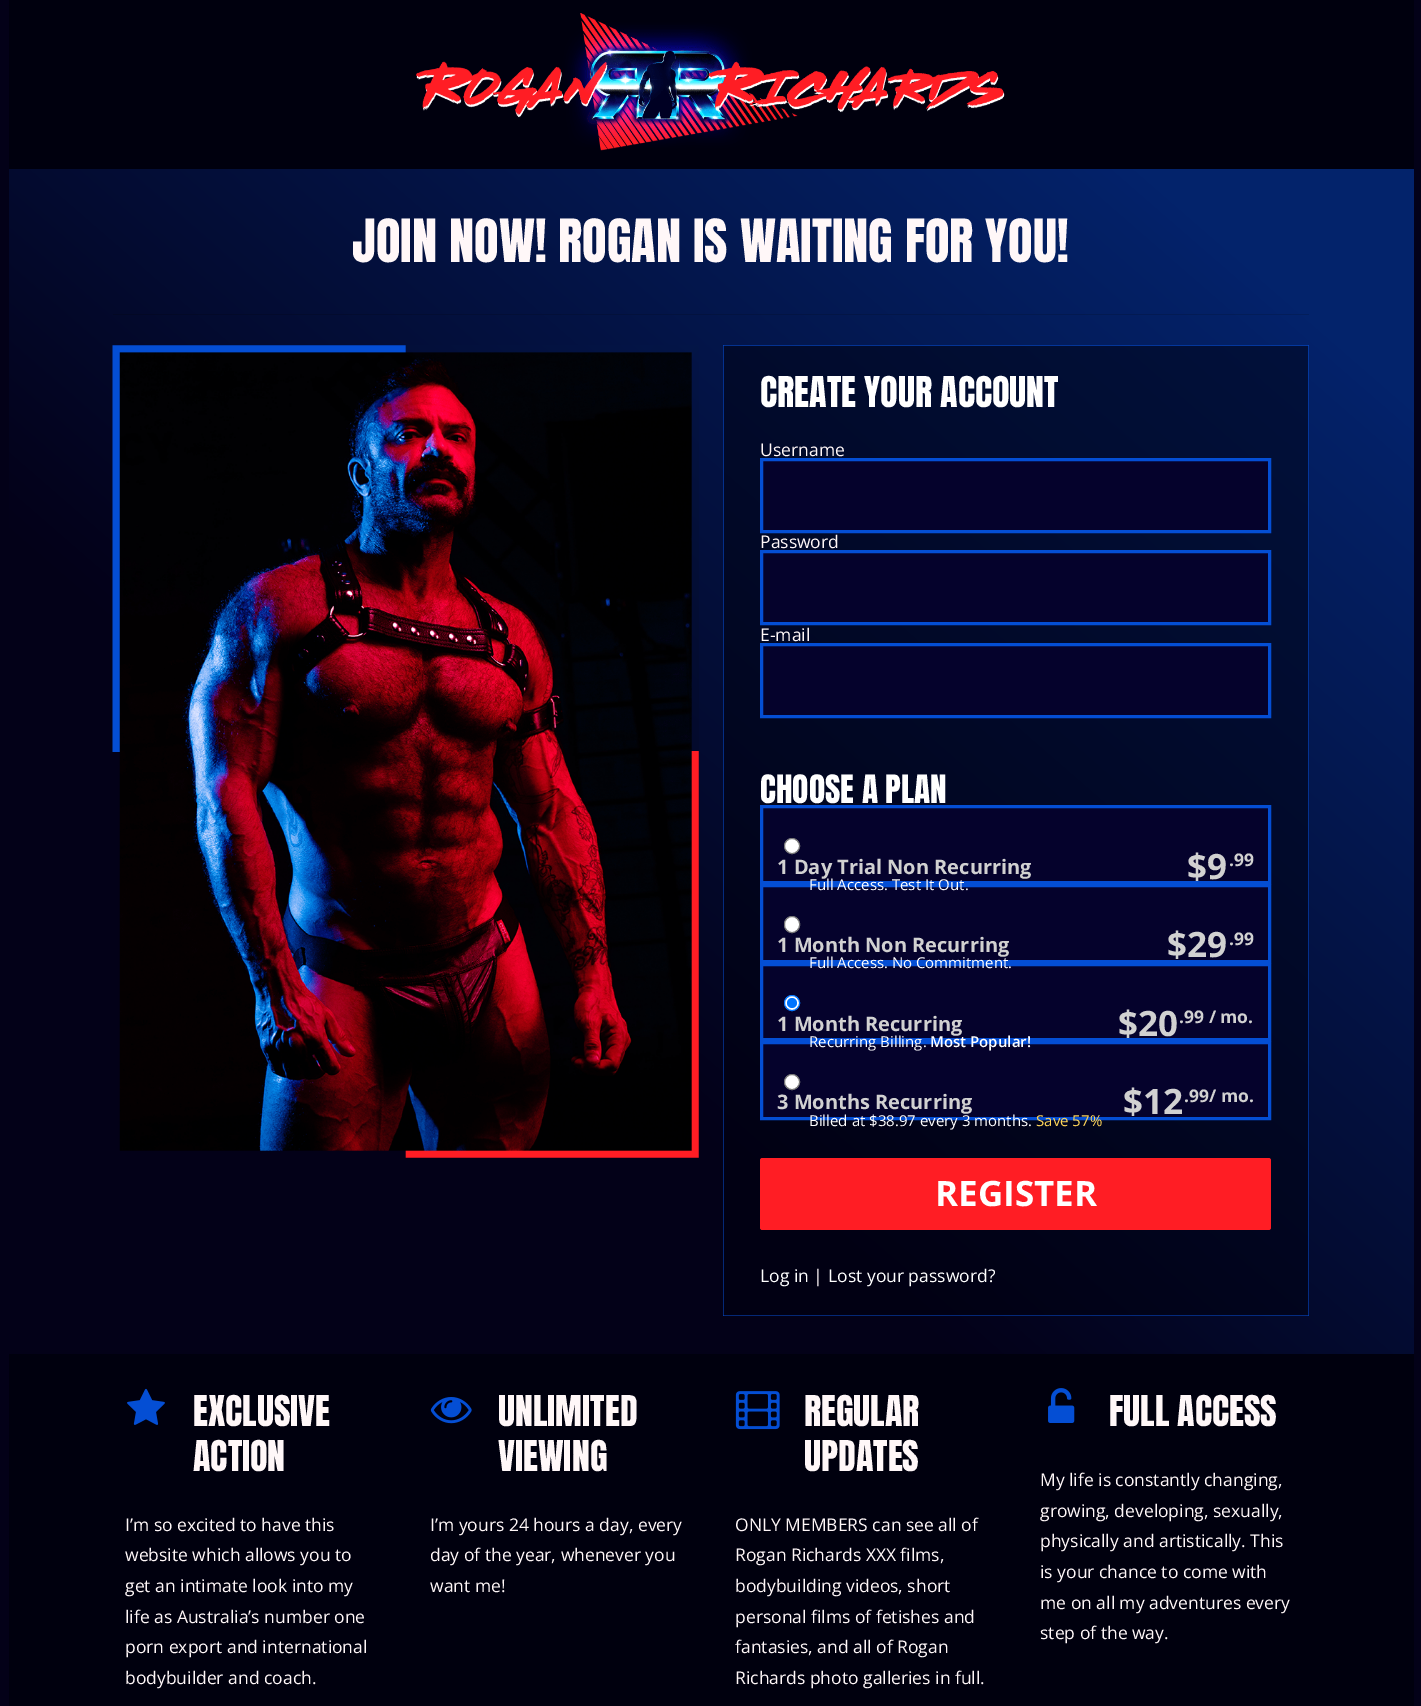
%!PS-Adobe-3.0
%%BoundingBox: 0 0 1421 1706
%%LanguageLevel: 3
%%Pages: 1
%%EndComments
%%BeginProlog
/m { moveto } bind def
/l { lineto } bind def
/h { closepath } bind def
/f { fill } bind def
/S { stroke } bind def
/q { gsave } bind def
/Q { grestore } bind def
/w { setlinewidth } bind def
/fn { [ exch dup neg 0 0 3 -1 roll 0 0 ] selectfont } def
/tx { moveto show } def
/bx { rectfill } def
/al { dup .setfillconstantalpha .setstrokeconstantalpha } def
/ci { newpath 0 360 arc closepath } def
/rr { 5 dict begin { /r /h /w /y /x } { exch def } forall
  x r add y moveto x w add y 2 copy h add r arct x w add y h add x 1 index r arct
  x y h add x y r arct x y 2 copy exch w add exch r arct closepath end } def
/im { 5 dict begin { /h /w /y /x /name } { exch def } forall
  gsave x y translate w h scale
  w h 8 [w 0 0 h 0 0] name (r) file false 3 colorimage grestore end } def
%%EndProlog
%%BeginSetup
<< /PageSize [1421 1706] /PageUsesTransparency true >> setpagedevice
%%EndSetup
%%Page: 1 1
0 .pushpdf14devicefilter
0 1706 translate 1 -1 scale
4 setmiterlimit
0.012 0.004 0.094 setrgbcolor
0 0 1421 1706 bx
0 0 0.055 setrgbcolor
9 0 1405 169 bx
(image0.raw) 416 13 589 138 im
q 9 169 m 1414 169 l 1414 1354 l 9 1354 l h clip newpath
<< /ShadingType 2 /ColorSpace /DeviceRGB /Coords [116 1447 1307 76] /Extend [true true] /Function << /FunctionType 3 /Domain [0 1] /Functions [<< /FunctionType 2 /Domain [0 1] /C0 [0.012 0.004 0.094] /C1 [0.012 0.004 0.094] /N 1 >> << /FunctionType 2 /Domain [0 1] /C0 [0.012 0.004 0.094] /C1 [0.012 0.137 0.42] /N 1 >> << /FunctionType 2 /Domain [0 1] /C0 [0.012 0.137 0.42] /C1 [0.012 0.137 0.42] /N 1 >>] /Bounds [0.34 0.9] /Encode [0 1 0 1 0 1] >> >> shfill Q
q 113 314 m 1309 314 l 1309 315 l 113 315 l h clip newpath
<< /ShadingType 2 /ColorSpace /DeviceRGB /Coords [116 1447 1307 76] /Extend [true true] /Function << /FunctionType 3 /Domain [0 1] /Functions [<< /FunctionType 2 /Domain [0 1] /C0 [0.012 0.004 0.078] /C1 [0.012 0.004 0.078] /N 1 >> << /FunctionType 2 /Domain [0 1] /C0 [0.012 0.004 0.078] /C1 [0.012 0.118 0.357] /N 1 >> << /FunctionType 2 /Domain [0 1] /C0 [0.012 0.118 0.357] /C1 [0.012 0.118 0.357] /N 1 >>] /Bounds [0.34 0.9] /Encode [0 1 0 1 0 1] >> >> shfill Q
/Anton-Regular 50.6 fn
1 0.969 0.973 setrgbcolor
(JOIN NOW! ROGAN IS WAITING FOR YOU!) 352 262 tx
(image1.raw) 112 345 587 813 im
0.5 al
0.016 0.306 0.831 setrgbcolor
723 345 586 1 bx
1308 345 1 971 bx
723 1315 586 1 bx
723 345 1 971 bx
0 0 0.055 setrgbcolor
724 346 584 969 bx
/Anton-Regular 36 fn
1 al
1 setgray
(CREATE YOUR ACCOUNT) 760 407 tx
/OpenSans-Regular 17.5 fn
1 0.969 0.973 setrgbcolor
(Username) 760 456 tx
0.02 0.008 0.173 setrgbcolor
761.5 459.5 m 1269.5 459.5 l 1269.5 531.5 l 761.5 531.5 l h q f Q
0.016 0.306 0.831 setrgbcolor
3 w
S
1 0.969 0.973 setrgbcolor
(Password) 760 548 tx
0.02 0.008 0.173 setrgbcolor
761.5 551.5 m 1269.5 551.5 l 1269.5 623.5 l 761.5 623.5 l h q f Q
0.016 0.306 0.831 setrgbcolor
S
1 0.969 0.973 setrgbcolor
(E-mail) 760 641 tx
0.02 0.008 0.173 setrgbcolor
761.5 644.5 m 1269.5 644.5 l 1269.5 716.5 l 761.5 716.5 l h q f Q
0.016 0.306 0.831 setrgbcolor
S
/Anton-Regular 33.25 fn
1 setgray
(CHOOSE A PLAN) 760 803 tx
0.02 0.008 0.173 setrgbcolor
761.5 806.5 m 1269.5 806.5 l 1269.5 882.5 l 761.5 882.5 l h q f Q
0.016 0.306 0.831 setrgbcolor
S
1 setgray
792 846 7.5 ci q f Q
0.463 setgray
1 w
S
/OpenSans-Bold 20 fn
0.82 setgray
(1 Day Trial Non Recurring) 777 874 tx
/OpenSans-Bold 35 fn
($9) 1187 879 tx
/OpenSans-Bold 17.5 fn
(.99) 1229 866 tx
0.02 0.008 0.173 setrgbcolor
761.5 885.5 m 1269.5 885.5 l 1269.5 961.5 l 761.5 961.5 l h q f Q
0.016 0.306 0.831 setrgbcolor
3 w
S
/OpenSans-Regular 15 fn
1 setgray
(Full Access. Test It Out.) 809 890 tx
784.5 916.5 15 16 7.5 rr q f Q
0.463 setgray
1 w
S
/OpenSans-Bold 20 fn
0.82 setgray
(1 Month Non Recurring) 777 952 tx
/OpenSans-Bold 35 fn
($29) 1167 957 tx
/OpenSans-Bold 17.5 fn
(.99) 1229 945 tx
0.02 0.008 0.173 setrgbcolor
761.5 964.5 m 1269.5 964.5 l 1269.5 1039.5 l 761.5 1039.5 l h q f Q
0.016 0.306 0.831 setrgbcolor
3 w
S
/OpenSans-Regular 15 fn
1 setgray
(Full Access. No Commitment.) 809 968 tx
792 1003 7.5 ci q f Q
0 0.459 1 setrgbcolor
1 w
S
792 1003 5 ci f
/OpenSans-Bold 20 fn
0.82 setgray
(1 Month Recurring) 777 1031 tx
/OpenSans-Bold 35 fn
($20) 1118 1036 tx
/OpenSans-Bold 17.5 fn
(.99 / mo.) 1179 1023 tx
0.02 0.008 0.173 setrgbcolor
761.5 1042.5 m 1269.5 1042.5 l 1269.5 1118.5 l 761.5 1118.5 l h q f Q
0.016 0.306 0.831 setrgbcolor
3 w
S
/OpenSans-Regular 15 fn
1 setgray
(Recurring Billing.) 809 1047 tx
/OpenSans-SemiBold 15 fn
(Most Popular!) 930 1047 tx
792 1082 7.5 ci q f Q
0.463 setgray
1 w
S
/OpenSans-Bold 20 fn
0.82 setgray
(3 Months Recurring) 777 1109 tx
/OpenSans-Bold 35 fn
($12) 1123 1114 tx
/OpenSans-Bold 17.5 fn
(.99/ mo.) 1184 1102 tx
/OpenSans-Regular 15 fn
1 setgray
(Billed at $38.97 every 3 months.) 809 1126 tx
1 0.839 0.349 setrgbcolor
(Save 57%) 1036 1126 tx
1 0.114 0.141 setrgbcolor
760 1158 511 72 2.5 rr f
/OpenSans-Bold 35 fn
1 setgray
(REGISTER) 935 1206 tx
/OpenSans-Regular 17.5 fn
(Log in) 760 1282 tx
1 0.969 0.973 setrgbcolor
(|) 813 1282 tx
1 setgray
(Lost your password?) 828 1282 tx
0 0 0.055 setrgbcolor
9 1354 1405 352 bx
(image2.raw) 127 1388 38 37 im
/Anton-Regular 36 fn
1 0.969 0.973 setrgbcolor
(EXCLUSIVE) 193 1426 tx
(ACTION) 193 1471 tx
/OpenSans-Regular 17.5 fn
(I’m so excited to have this) 125 1531 tx
(website which allows you to) 125 1561 tx
(get an intimate look into my) 125 1592 tx
(life as Australia’s number one) 125 1623 tx
(porn export and international) 125 1653 tx
(bodybuilder and coach.) 125 1684 tx
(image3.raw) 430 1397 42 27 im
/Anton-Regular 36 fn
(UNLIMITED) 498 1426 tx
(VIEWING) 498 1471 tx
/OpenSans-Regular 17.5 fn
(I’m yours 24 hours a day, every) 430 1531 tx
(day of the year, whenever you) 430 1561 tx
(want me!) 430 1592 tx
(image4.raw) 735 1391 45 39 im
/Anton-Regular 36 fn
(REGULAR) 804 1426 tx
(UPDATES) 804 1471 tx
/OpenSans-Regular 17.5 fn
(ONLY MEMBERS can see all of) 735 1531 tx
(Rogan Richards XXX films,) 735 1561 tx
(bodybuilding videos, short) 735 1592 tx
(personal films of fetishes and) 735 1623 tx
(fantasies, and all of Rogan) 735 1653 tx
(Richards photo galleries in full.) 735 1684 tx
(image5.raw) 1048 1388 27 35 im
/Anton-Regular 36 fn
(FULL ACCESS) 1109 1426 tx
/OpenSans-Regular 17.5 fn
(My life is constantly changing,) 1040 1486 tx
(growing, developing, sexually,) 1040 1517 tx
(physically and artistically. This) 1040 1547 tx
(is your chance to come with) 1040 1578 tx
(me on all my adventures every) 1040 1609 tx
(step of the way.) 1040 1639 tx
.poppdf14devicefilter showpage
%%EOF
